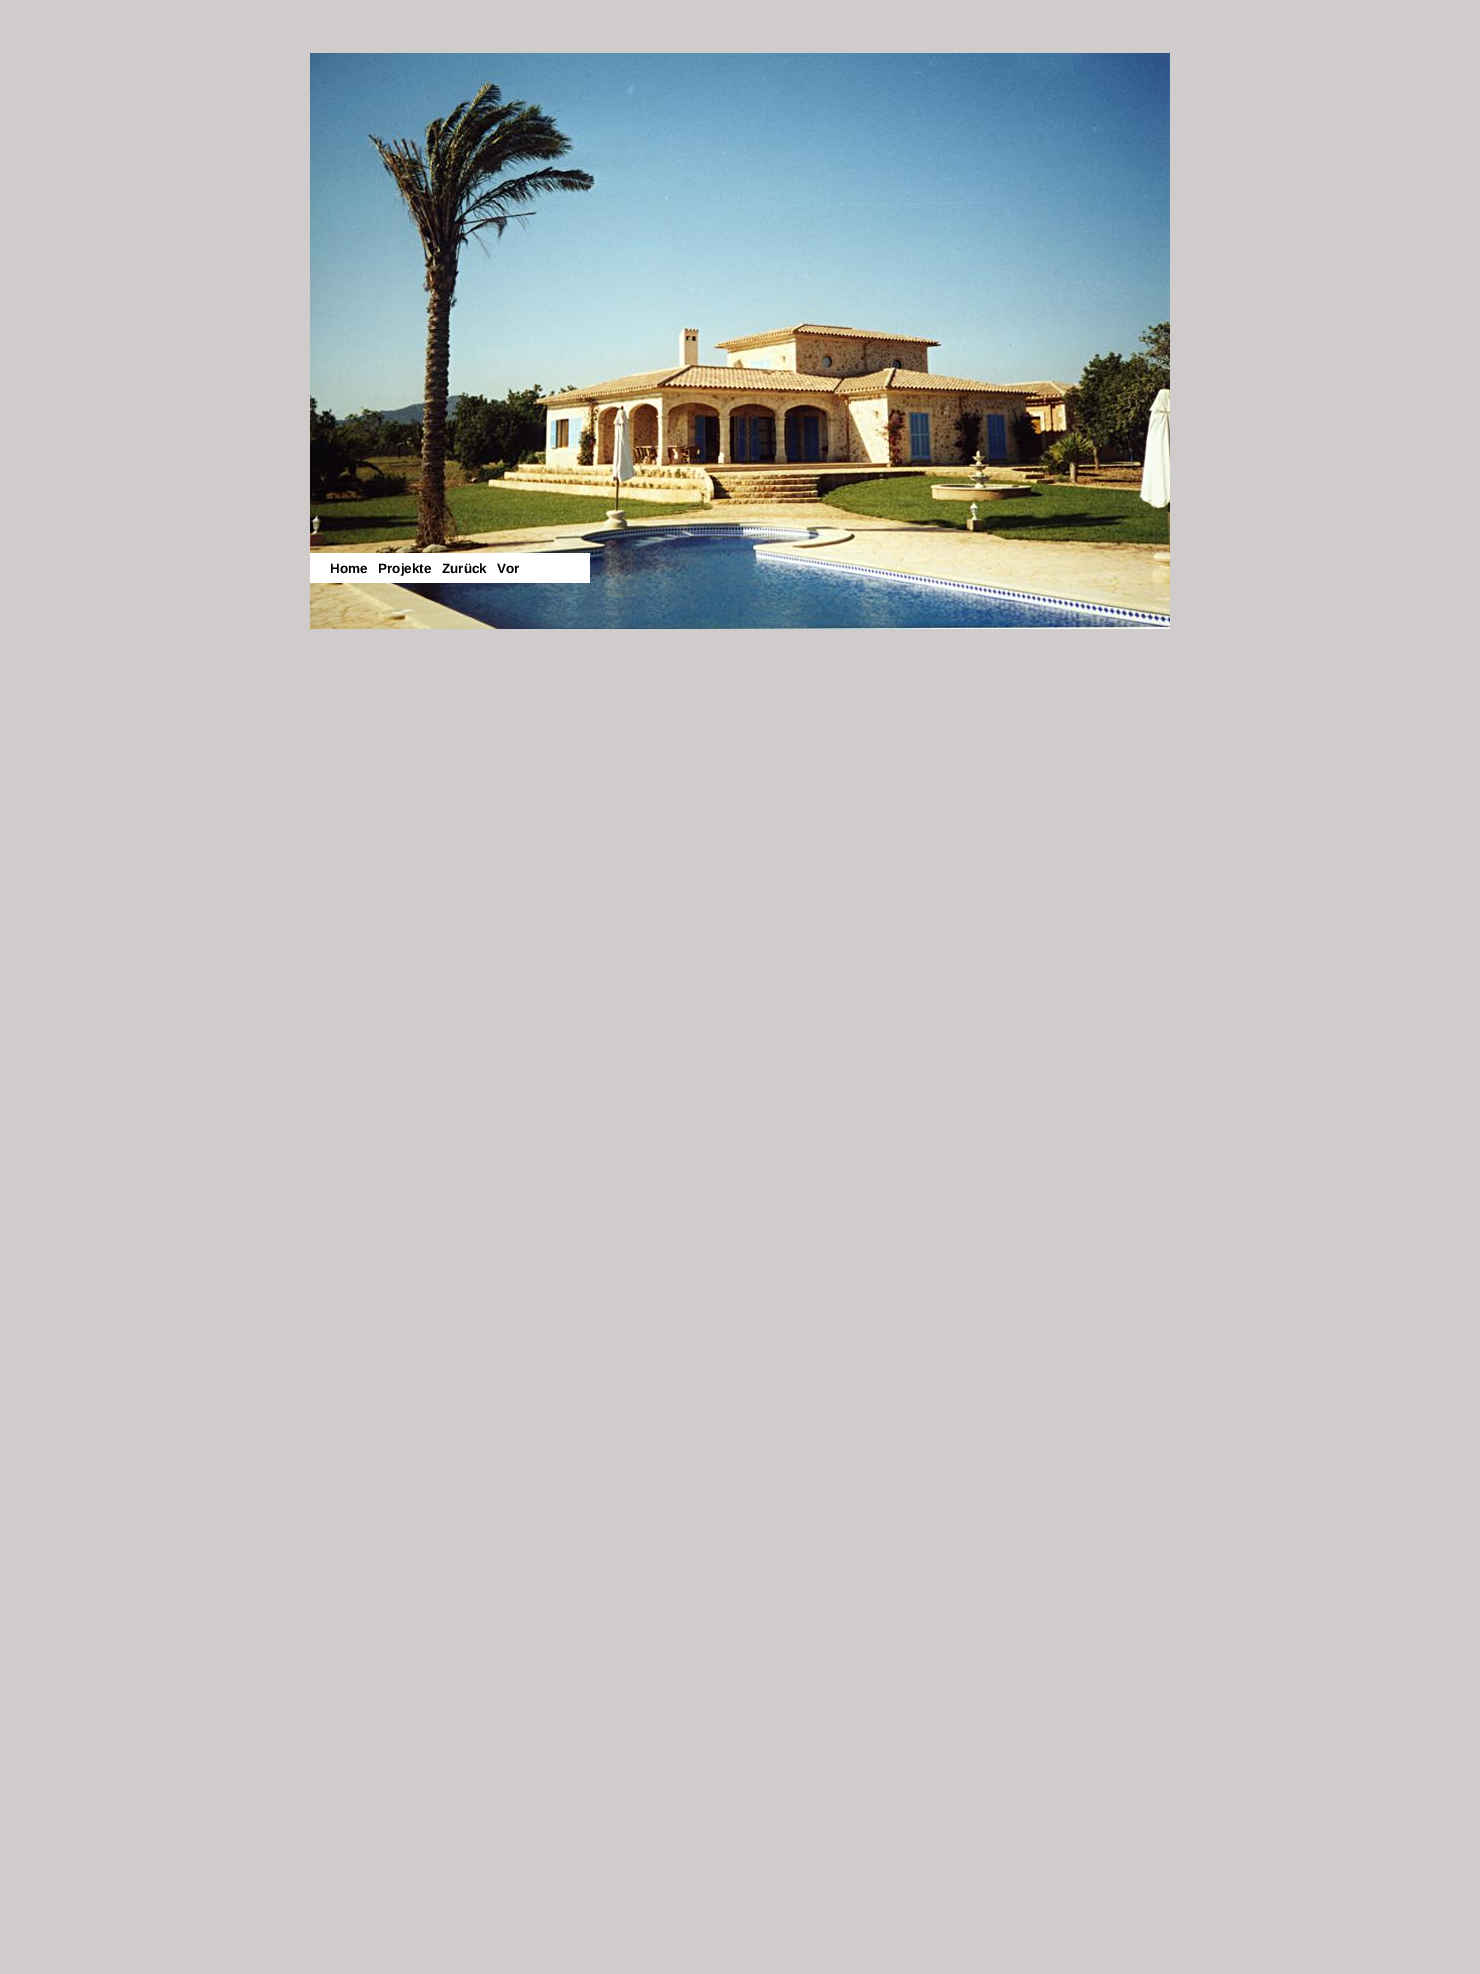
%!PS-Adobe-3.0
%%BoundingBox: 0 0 1480 1974
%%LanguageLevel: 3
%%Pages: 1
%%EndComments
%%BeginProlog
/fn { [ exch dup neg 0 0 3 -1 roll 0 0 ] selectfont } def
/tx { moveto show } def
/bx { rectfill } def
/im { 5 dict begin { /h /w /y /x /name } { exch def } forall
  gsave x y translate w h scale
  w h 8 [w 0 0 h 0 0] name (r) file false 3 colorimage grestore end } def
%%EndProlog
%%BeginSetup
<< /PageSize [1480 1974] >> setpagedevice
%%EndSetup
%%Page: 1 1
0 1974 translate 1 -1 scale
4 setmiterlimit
0.816 0.8 0.8 setrgbcolor
0 0 1480 1974 bx
(image0.raw) 310 53 860 576 im
1 setgray
310 553 280 30 bx
/LiberationSans-Bold 13.5 fn
0 setgray
(Home) 330 573 tx
(Projekte) 378 573 tx
(Zurück) 442 573 tx
(Vor) 497 573 tx
showpage
%%EOF
